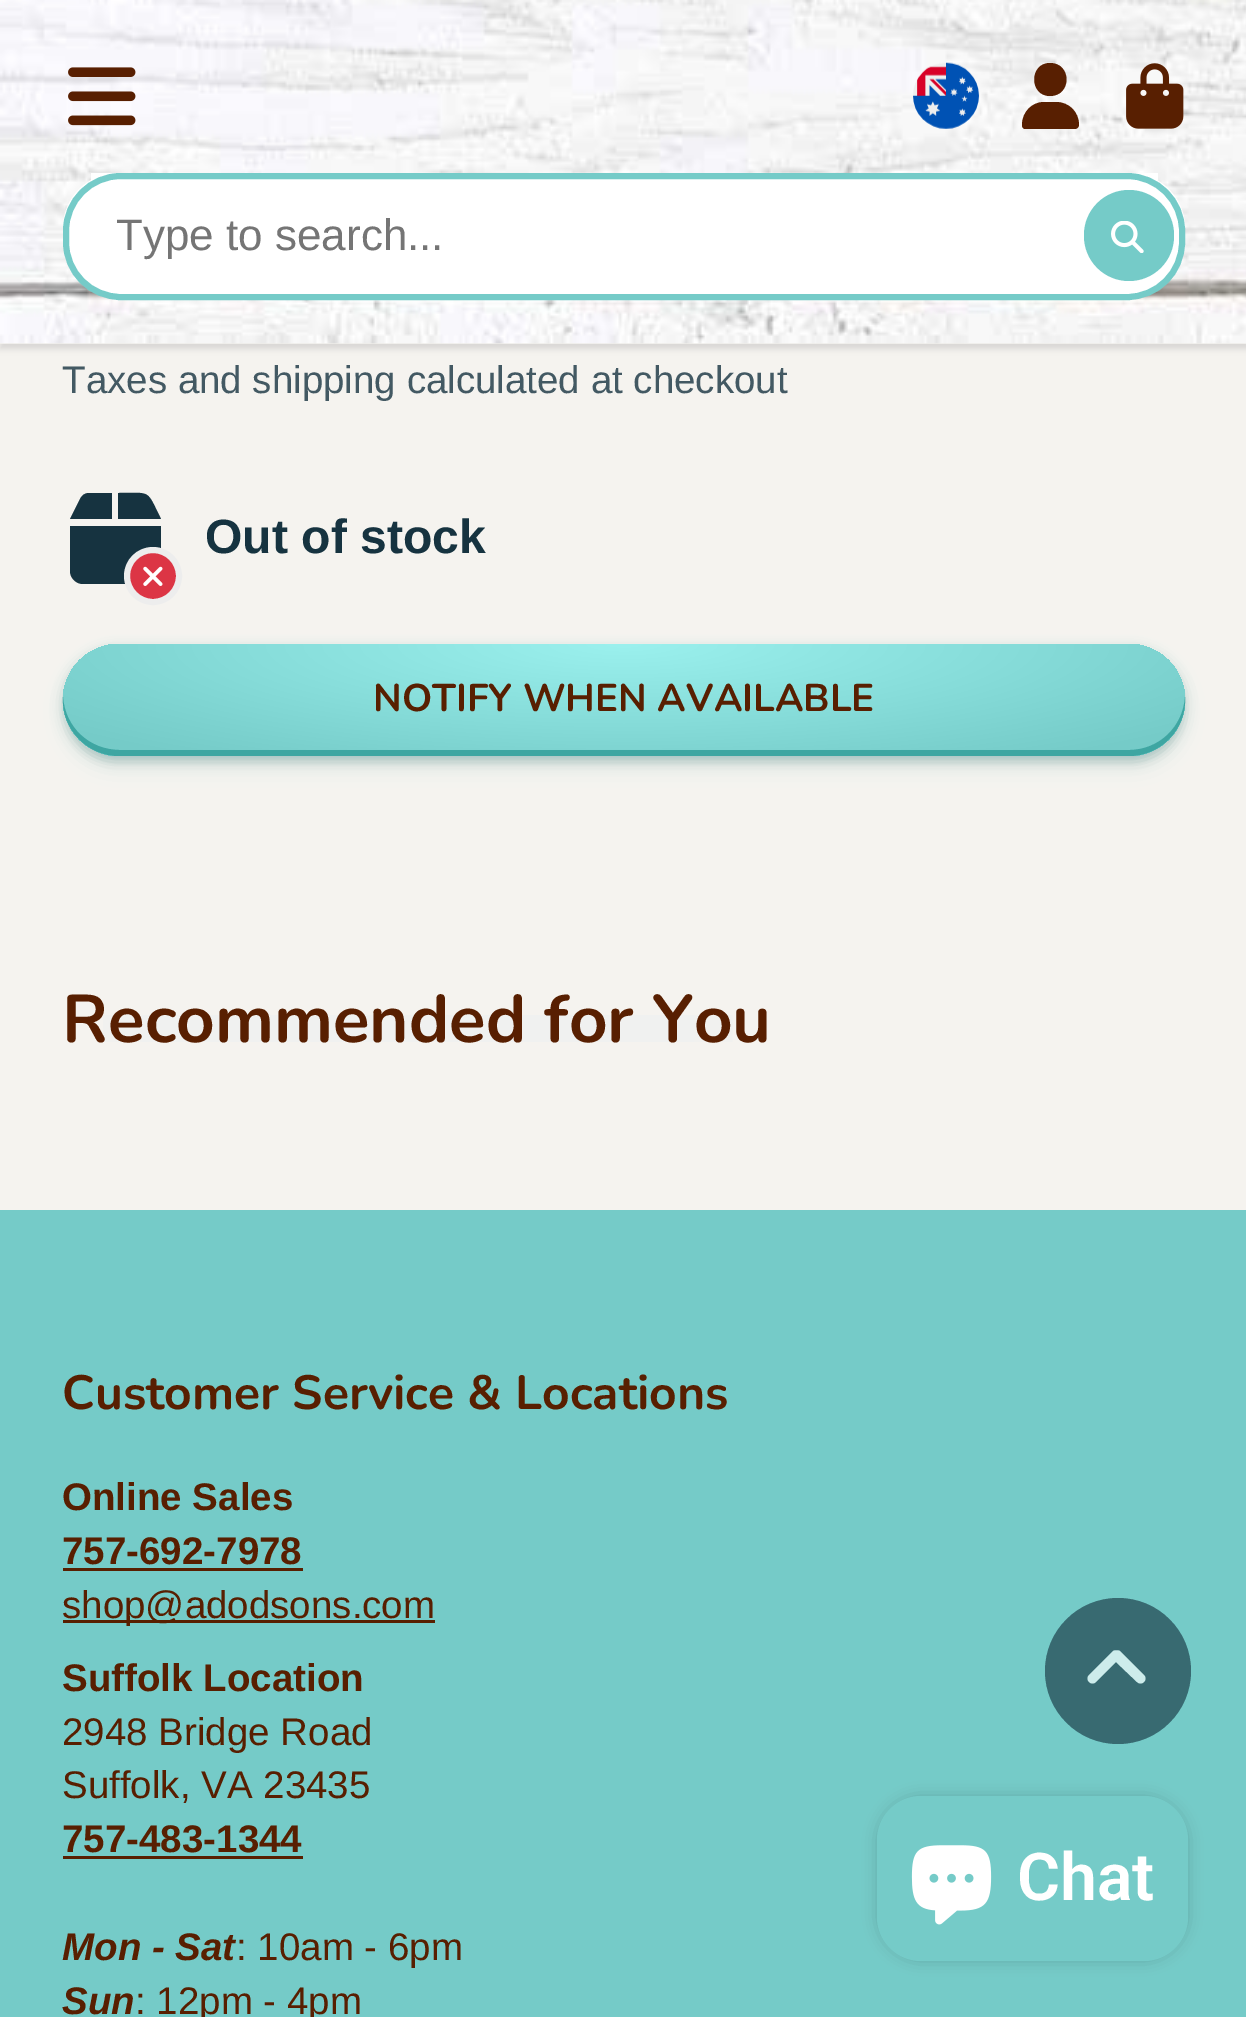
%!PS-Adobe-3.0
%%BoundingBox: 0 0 1246 2017
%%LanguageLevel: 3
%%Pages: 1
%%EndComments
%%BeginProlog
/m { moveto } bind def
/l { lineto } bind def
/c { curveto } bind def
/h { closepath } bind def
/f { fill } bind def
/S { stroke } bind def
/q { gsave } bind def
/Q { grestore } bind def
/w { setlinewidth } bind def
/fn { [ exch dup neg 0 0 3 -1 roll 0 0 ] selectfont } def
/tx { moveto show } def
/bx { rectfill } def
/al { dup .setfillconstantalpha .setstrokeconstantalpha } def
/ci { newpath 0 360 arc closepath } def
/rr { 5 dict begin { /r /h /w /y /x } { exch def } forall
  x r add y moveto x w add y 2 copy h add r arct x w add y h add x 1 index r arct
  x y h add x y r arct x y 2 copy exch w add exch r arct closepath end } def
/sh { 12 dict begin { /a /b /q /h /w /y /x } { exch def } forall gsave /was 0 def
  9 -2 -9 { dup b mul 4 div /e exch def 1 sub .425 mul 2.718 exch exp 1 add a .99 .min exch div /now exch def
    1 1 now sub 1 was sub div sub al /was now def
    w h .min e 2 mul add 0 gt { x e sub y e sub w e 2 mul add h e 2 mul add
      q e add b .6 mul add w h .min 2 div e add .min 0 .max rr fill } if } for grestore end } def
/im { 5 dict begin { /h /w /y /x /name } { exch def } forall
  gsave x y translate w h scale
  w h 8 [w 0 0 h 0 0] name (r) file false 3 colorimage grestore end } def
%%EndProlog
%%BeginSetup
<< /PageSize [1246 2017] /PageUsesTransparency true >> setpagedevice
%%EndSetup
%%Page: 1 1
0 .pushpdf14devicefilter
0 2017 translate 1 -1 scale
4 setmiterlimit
0.961 0.953 0.937 setrgbcolor
0 0 1246 2017 bx
0.043 0.098 0.11 setrgbcolor
0 6 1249 343 0 3 0.12 sh
(image0.raw) 0 0 1246 344 im
(image1.raw) 68 67 68 59 im
(image2.raw) 913 62 66 67 im
0.345 0.122 0.004 setrgbcolor
1050 96 m 1072 96 1072 63 1050 63 c 1029 63 1029 96 1050 96 c h 1044 102 m 1032 102 1022 112 1022 125 c 1022 127 1023 129 1025 129 c 1075 129 l 1077 129 1079 127 1079 125 c 1079 112 1069 102 1056 102 c h f
(image3.raw) 1126 63 58 66 im
1 setgray
63 173 1122 110 55 rr f
91 173 1067 8 bx
66 176 1116 121 55 rr q f Q
0.459 0.796 0.784 setrgbcolor
6 w
S
/LiberationSans-Regular 44 fn
0.459 setgray
(Type to search...) 116 250 tx
0.459 0.796 0.784 setrgbcolor
1084 190 90 91 45 rr f
(image4.raw) 1111 221 33 32 im
/LiberationSans-Regular 38.5 fn
0.263 0.349 0.388 setrgbcolor
(Taxes and shipping calculated at checkout) 62 393 tx
0.086 0.2 0.251 setrgbcolor
80 499 m 70 519 l 112 519 l 112 493 l 89 493 l 85 493 82 495 80 499 c h 118 519 m 161 519 l 146 489 152 493 118 493 c h 161 526 m 70 526 l 70 571 l 70 578 76 584 83 584 c 148 584 l 155 584 161 578 161 571 c h f
0.863 0.208 0.271 setrgbcolor
153 576 26 ci q f Q
0.929 setgray
S
(image5.raw) 143 566 20 20 im
/LiberationSans-Bold 48.1 fn
0.086 0.2 0.251 setrgbcolor
(Out of stock) 205 553 tx
0.18 0.475 0.467 setrgbcolor
69 660 1111 102 51 11.5 0.15 sh
63 649 1122 113 56.5 6 0.3 sh
q
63 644 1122 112 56 rr clip newpath
69 660 1111 102 51 11.5 0.15 sh
63 649 1122 113 56.5 6 0.3 sh
Q
q 63 644 1122 112 56 rr clip newpath 624 644 translate 793 159 scale
<< /ShadingType 3 /ColorSpace /DeviceRGB /Coords [0 0 0 0 0 1] /Extend [true true] /Function << /FunctionType 3 /Domain [0 1] /Functions [<< /FunctionType 2 /Domain [0 1] /C0 [0.608 0.945 0.933] /C1 [0.459 0.796 0.784] /N 1 >> << /FunctionType 2 /Domain [0 1] /C0 [0.459 0.796 0.784] /C1 [0.459 0.796 0.784] /N 1 >>] /Bounds [0.9] /Encode [0 1 0 1] >> >> shfill Q
0.243 0.651 0.635 setrgbcolor
63 697 m 61 729 87 756 119 756 c 1129 756 l 1161 756 1187 729 1185 697 c 1183 727 1159 750 1129 750 c 120 750 l 89 750 65 727 63 697 c h f
/Nunito-Bold 38.5 fn
0.345 0.122 0.004 setrgbcolor
(NOTIFY WHEN AVAILABLE) 373 711 tx
q 103 1015 m 733 1015 l 733 1042 l 103 1042 l h clip newpath
<< /ShadingType 2 /ColorSpace /DeviceRGB /Coords [47 1028 789 1028] /Extend [true true] /Function << /FunctionType 3 /Domain [0 1] /Functions [<< /FunctionType 2 /Domain [0 1] /C0 [0.961 0.953 0.937] /C1 [0.941 0.945 0.941] /N 1 >> << /FunctionType 2 /Domain [0 1] /C0 [0.941 0.945 0.941] /C1 [0.941 0.945 0.941] /N 1 >> << /FunctionType 2 /Domain [0 1] /C0 [0.941 0.945 0.941] /C1 [0.961 0.953 0.937] /N 1 >>] /Bounds [0.15 0.85] /Encode [0 1 0 1 0 1] >> >> shfill Q
/Nunito-Bold 67.25 fn
(Recommended for You) 62 1042 tx
0.459 0.796 0.784 setrgbcolor
0 1210 1246 807 bx
/Nunito-Bold 48.1 fn
0.345 0.122 0.004 setrgbcolor
(Customer Service & Locations) 62 1409 tx
/LiberationSans-Bold 38.5 fn
(Online Sales) 62 1510 tx
(757-692-7978) 62 1564 tx
63 1568 240 3 bx
63 1620 372 3 bx
/LiberationSans-Regular 38.5 fn
(shop@adodsons.com) 62 1618 tx
/LiberationSans-Bold 38.5 fn
(Suffolk Location) 62 1691 tx
/LiberationSans-Regular 38.5 fn
(2948 Bridge Road) 62 1745 tx
(Suffolk, VA 23435) 62 1798 tx
/LiberationSans-Bold 38.5 fn
(757-483-1344) 62 1852 tx
63 1856 240 3 bx
/LiberationSans-BoldItalic 38.5 fn
(Mon - Sat) 62 1960 tx
/LiberationSans-Regular 38.5 fn
(: 10am - 6pm) 236 1960 tx
/LiberationSans-BoldItalic 38.5 fn
(Sun) 62 2014 tx
/LiberationSans-Regular 38.5 fn
(: 12pm - 4pm) 135 2014 tx
0.22 0.416 0.443 setrgbcolor
1118 1671 73 ci f
0.804 0.925 0.922 setrgbcolor
1113 1651 m 1115 1650 1118 1650 1120 1651 c 1144 1675 l 1146 1677 1146 1680 1144 1682 c 1142 1684 1139 1684 1137 1682 c 1116 1662 l 1096 1682 l 1094 1684 1091 1684 1089 1682 c 1087 1680 1087 1677 1089 1675 c h f
0 setgray
877 1796 311 165 44 7 0.15 sh
0.459 0.796 0.784 setrgbcolor
877 1796 311 165 44 rr f
(image6.raw) 911 1845 81 80 im
/Roboto-SemiBold 66 fn
1 setgray
(Chat) 1017 1900 tx
.poppdf14devicefilter showpage
%%EOF
